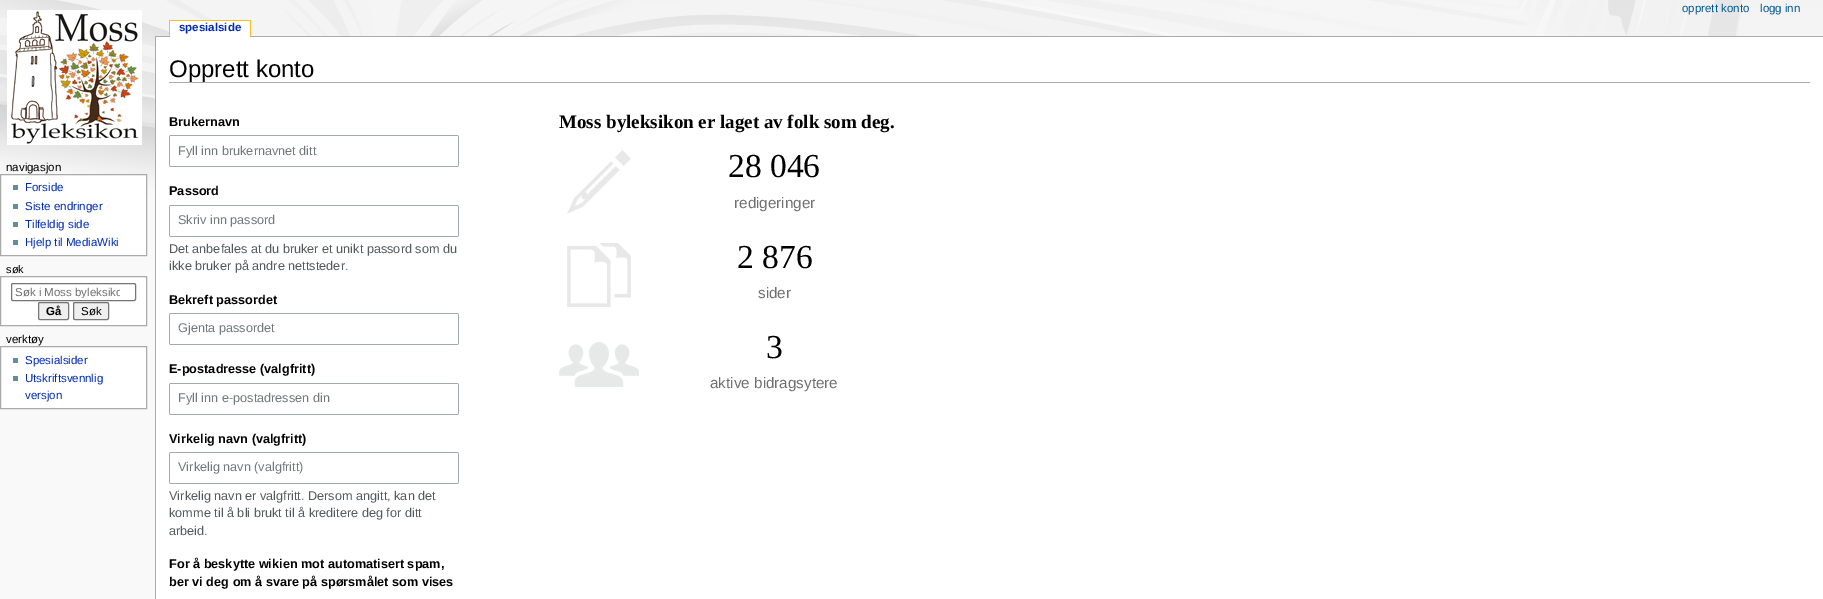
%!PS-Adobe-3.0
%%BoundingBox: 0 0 1823 599
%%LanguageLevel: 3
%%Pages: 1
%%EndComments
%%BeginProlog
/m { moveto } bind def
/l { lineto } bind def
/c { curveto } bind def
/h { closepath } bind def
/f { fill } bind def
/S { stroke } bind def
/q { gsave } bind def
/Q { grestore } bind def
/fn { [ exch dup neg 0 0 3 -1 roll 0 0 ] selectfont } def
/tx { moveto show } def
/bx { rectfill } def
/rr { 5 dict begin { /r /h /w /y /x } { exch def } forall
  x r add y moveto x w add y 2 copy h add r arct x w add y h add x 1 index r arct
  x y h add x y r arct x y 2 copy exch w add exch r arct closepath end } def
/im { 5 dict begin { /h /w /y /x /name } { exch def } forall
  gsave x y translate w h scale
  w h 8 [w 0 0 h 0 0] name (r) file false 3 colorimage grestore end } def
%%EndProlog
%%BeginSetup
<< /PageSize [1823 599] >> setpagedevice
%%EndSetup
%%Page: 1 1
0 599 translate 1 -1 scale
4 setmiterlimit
0.976 setgray
0 0 1823 599 bx
(image0.raw) 0 0 1823 210 im
(image1.raw) 7 10 135 135 im
0.667 setgray
155 36 1668 1 bx
1 setgray
170 21 80 16 bx
/LiberationSans-Bold 11.5 fn
0 0.169 0.722 setrgbcolor
(spesialside) 179 31 tx
0.98 0.741 0.137 setrgbcolor
169 20 82 1 bx
250 20 1 16 bx
169 20 1 16 bx
/LiberationSans-Regular 11.5 fn
0 0.345 0.588 setrgbcolor
(opprett konto) 1682 12 tx
(logg inn) 1760 12 tx
0 setgray
(navigasjon) 6 171 tx
1 setgray
0.5 174.5 m 146.5 174.5 l 146.5 255.5 l 0.5 255.5 l h q f Q
0.667 setgray
S
0.388 0.549 0.612 setrgbcolor
13 185 5 5 bx
0 0.169 0.722 setrgbcolor
(Forside) 25 191 tx
0.388 0.549 0.612 setrgbcolor
13 204 5 5 bx
0 0.169 0.722 setrgbcolor
(Siste endringer) 25 210 tx
0.388 0.549 0.612 setrgbcolor
13 222 5 5 bx
0 0.169 0.722 setrgbcolor
(Tilfeldig side) 25 228 tx
0.388 0.549 0.612 setrgbcolor
13 240 5 5 bx
0 0.169 0.722 setrgbcolor
(Hjelp til MediaWiki) 25 246 tx
/LiberationSans-Regular 11 fn
0 setgray
(søk) 6 273 tx
1 setgray
0.5 276.5 m 146.5 276.5 l 146.5 325.5 l 0.5 325.5 l h q f Q
0.667 setgray
S
0.463 setgray
11.5 283.5 124 17 1.5 rr S
q
15 286 105 12 rectclip
/LiberationSans-Regular 11.5 fn
0.439 setgray
(Søk i Moss byleksiko) 15 296 tx
Q
0.937 setgray
38.5 302.5 30 17 1.5 rr q f Q
0.463 setgray
S
/LiberationSans-Bold 11.5 fn
0 setgray
(Gå) 46 315 tx
0.937 setgray
73.5 302.5 35 17 1.5 rr q f Q
0.463 setgray
S
/LiberationSans-Regular 11.5 fn
0 setgray
(Søk) 81 315 tx
(verktøy) 6 343 tx
1 setgray
0.5 346.5 m 146.5 346.5 l 146.5 408.5 l 0.5 408.5 l h q f Q
0.667 setgray
S
0.388 0.549 0.612 setrgbcolor
13 358 5 5 bx
0 0.169 0.722 setrgbcolor
(Spesialsider) 25 364 tx
0.388 0.549 0.612 setrgbcolor
13 376 5 5 bx
0 0.169 0.722 setrgbcolor
(Utskriftsvennlig) 25 382 tx
(versjon) 25 399 tx
1 setgray
156 37 1667 562 bx
0.667 setgray
155 36 1 563 bx
169 82 1641 1 bx
/LiberationSans-Regular 24 fn
0 setgray
(Opprett konto) 169 77 tx
/LiberationSans-Bold 12.7 fn
(Brukernavn) 169 126 tx
0.635 0.663 0.694 setrgbcolor
171 135 m 170 135 169 136 169 137 c 169 165 l 169 166 170 167 171 167 c 457 167 l 458 167 459 166 459 165 c 459 137 l 459 136 458 135 457 135 c h 170 136 m 170 166 l 458 166 l 458 136 l h eofill
/LiberationSans-Regular 12.7 fn
0.447 0.467 0.49 setrgbcolor
(Fyll inn brukernavnet ditt) 178 155 tx
/LiberationSans-Bold 12.7 fn
0 setgray
(Passord) 169 195 tx
0.635 0.663 0.694 setrgbcolor
171 205 m 170 205 169 206 169 207 c 169 235 l 169 236 170 237 171 237 c 457 237 l 458 237 459 236 459 235 c 459 207 l 459 206 458 205 457 205 c h 170 206 m 170 236 l 458 236 l 458 206 l h eofill
/LiberationSans-Regular 12.7 fn
0.447 0.467 0.49 setrgbcolor
(Skriv inn passord) 178 224 tx
0.329 0.349 0.365 setrgbcolor
(Det anbefales at du bruker et unikt passord som du) 169 253 tx
(ikke bruker på andre nettsteder.) 169 270 tx
/LiberationSans-Bold 12.7 fn
0 setgray
(Bekreft passordet) 169 304 tx
0.635 0.663 0.694 setrgbcolor
171 313 m 170 313 169 314 169 315 c 169 343 l 169 344 170 345 171 345 c 457 345 l 458 345 459 344 459 343 c 459 315 l 459 314 458 313 457 313 c h 170 314 m 170 344 l 458 344 l 458 314 l h eofill
/LiberationSans-Regular 12.7 fn
0.447 0.467 0.49 setrgbcolor
(Gjenta passordet) 178 332 tx
/LiberationSans-Bold 12.7 fn
0 setgray
(E-postadresse \(valgfritt\)) 169 373 tx
0.635 0.663 0.694 setrgbcolor
171 383 m 170 383 169 384 169 385 c 169 413 l 169 414 170 415 171 415 c 457 415 l 458 415 459 414 459 413 c 459 385 l 459 384 458 383 457 383 c h 170 384 m 170 414 l 458 414 l 458 384 l h eofill
/LiberationSans-Regular 12.7 fn
0.447 0.467 0.49 setrgbcolor
(Fyll inn e-postadressen din) 178 402 tx
/LiberationSans-Bold 12.7 fn
0 setgray
(Virkelig navn \(valgfritt\)) 169 443 tx
0.635 0.663 0.694 setrgbcolor
171 452 m 170 452 169 453 169 454 c 169 482 l 169 483 170 484 171 484 c 457 484 l 458 484 459 483 459 482 c 459 454 l 459 453 458 452 457 452 c h 170 453 m 170 483 l 458 483 l 458 453 l h eofill
/LiberationSans-Regular 12.7 fn
0.447 0.467 0.49 setrgbcolor
(Virkelig navn \(valgfritt\)) 178 471 tx
0.329 0.349 0.365 setrgbcolor
(Virkelig navn er valgfritt. Dersom angitt, kan det) 169 500 tx
(komme til å bli brukt til å kreditere deg for ditt) 169 517 tx
(arbeid.) 169 535 tx
/LiberationSans-Bold 12.7 fn
0 setgray
(For å beskytte wikien mot automatisert spam,) 169 568 tx
(ber vi deg om å svare på spørsmålet som vises) 169 586 tx
/LiberationSerif-Bold 19 fn
(Moss byleksikon er laget av folk som deg.) 559 128 tx
(image2.raw) 567 150 64 64 im
/LiberationSerif-Regular 33.5 fn
(28 046) 728 177 tx
/LiberationSans-Regular 15.25 fn
0.439 setgray
(redigeringer) 734 208 tx
(image3.raw) 567 243 64 64 im
/LiberationSerif-Regular 33.5 fn
0 setgray
(2 876) 737 268 tx
/LiberationSans-Regular 15.25 fn
0.439 setgray
(sider) 758 298 tx
(image4.raw) 559 342 80 45 im
/LiberationSerif-Regular 33.5 fn
0 setgray
(3) 766 358 tx
/LiberationSans-Regular 15.25 fn
0.439 setgray
(aktive bidragsytere) 710 388 tx
showpage
%%EOF
